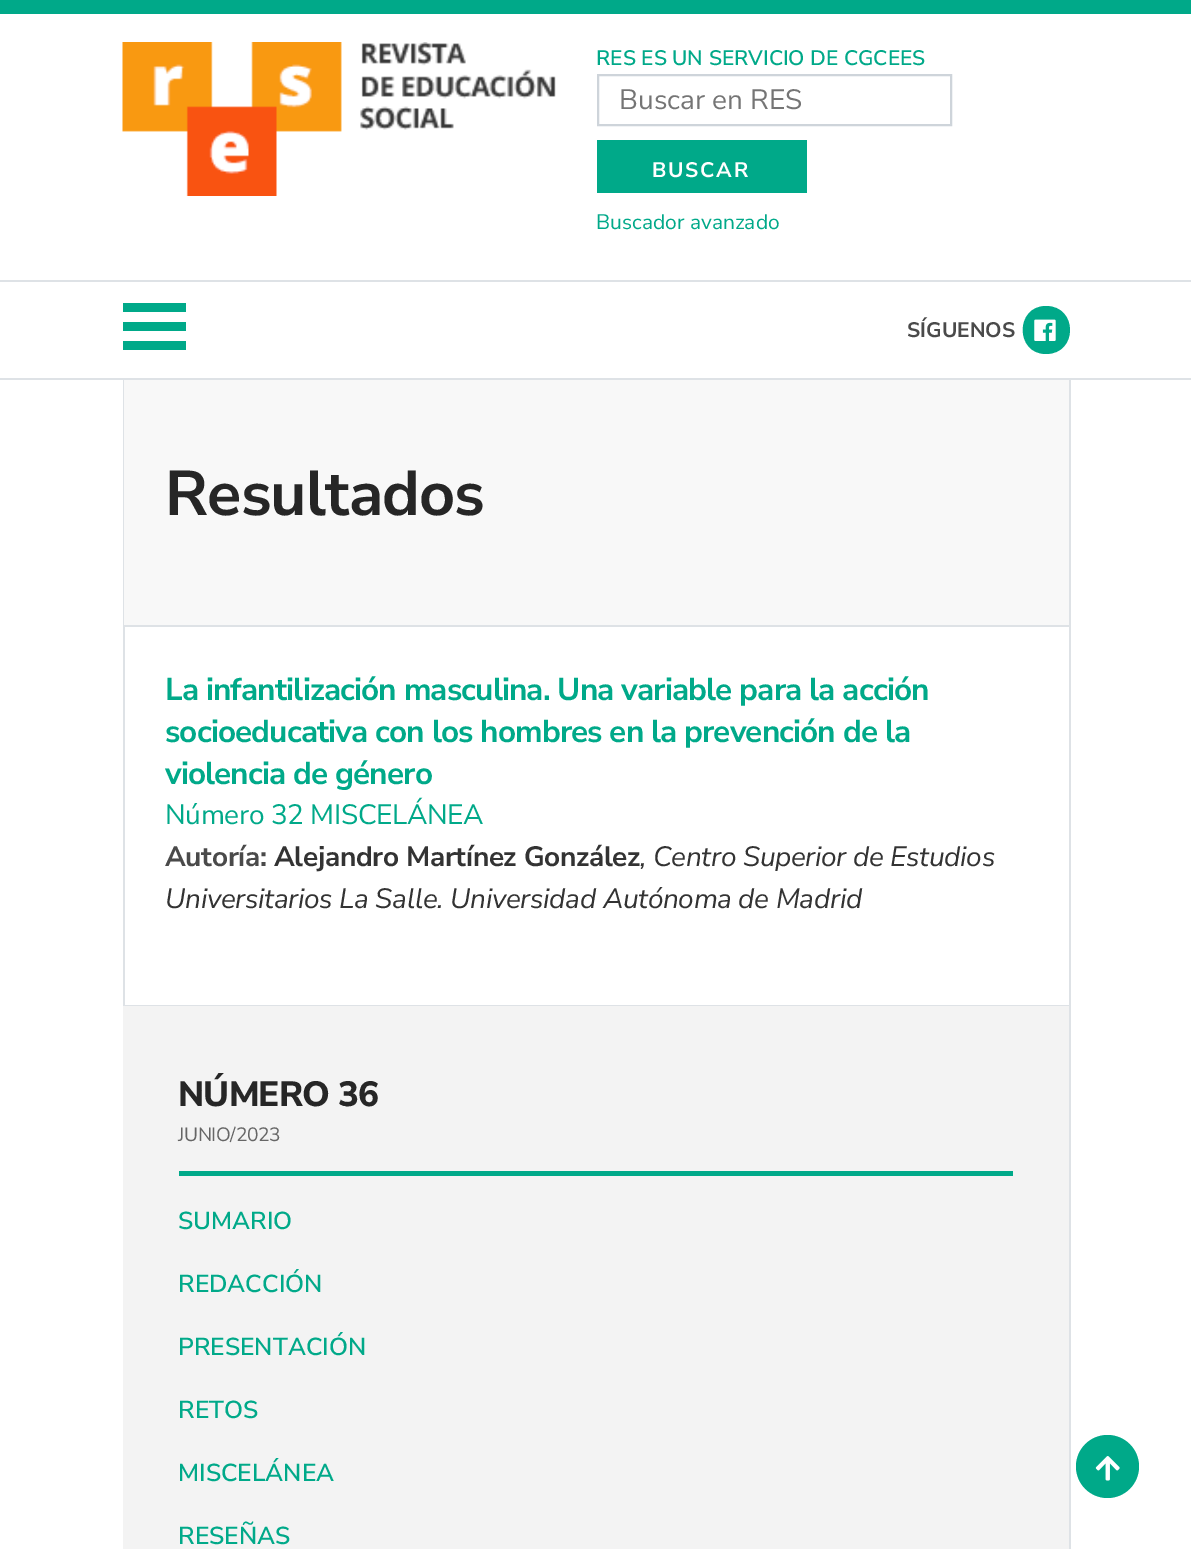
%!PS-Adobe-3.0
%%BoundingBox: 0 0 1191 1549
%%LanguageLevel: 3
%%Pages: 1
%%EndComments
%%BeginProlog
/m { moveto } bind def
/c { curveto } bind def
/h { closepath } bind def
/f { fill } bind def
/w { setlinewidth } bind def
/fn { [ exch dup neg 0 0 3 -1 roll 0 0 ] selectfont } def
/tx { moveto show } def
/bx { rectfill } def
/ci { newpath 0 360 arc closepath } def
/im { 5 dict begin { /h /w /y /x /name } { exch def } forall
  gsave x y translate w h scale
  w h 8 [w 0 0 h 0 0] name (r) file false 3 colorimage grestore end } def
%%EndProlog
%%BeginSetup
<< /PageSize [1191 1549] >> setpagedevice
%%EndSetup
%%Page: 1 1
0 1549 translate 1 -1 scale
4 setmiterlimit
1 setgray
0 0 1191 1549 bx
0 0.663 0.537 setrgbcolor
0 0 1191 14 bx
(image0.raw) 122 42 434 154 im
/NunitoSans-SemiBold 21 fn
(RES ES UN SERVICIO DE CGCEES) 596 65 tx
0.808 0.831 0.855 setrgbcolor
2 w
598 75 353 50 rectstroke
/NunitoSans-Regular 28 fn
0.459 setgray
(Buscar en RES) 619 109 tx
0 0.663 0.537 setrgbcolor
597 140 210 53 bx
/NunitoSans-Bold 21 fn
1 setgray
652 177 m 1.75 0 (BUSCAR) ashow
/NunitoSans-Regular 21 fn
0 0.663 0.537 setrgbcolor
(Buscador avanzado) 596 229 tx
0.871 0.886 0.902 setrgbcolor
0 280 1191 2 bx
0 378 1191 2 bx
0 0.663 0.537 setrgbcolor
123 303 63 9 bx
123 322 63 9 bx
123 341 63 9 bx
/NunitoSans-Bold 21 fn
0.29 setgray
(SÍGUENOS) 907 337 tx
0 0.663 0.537 setrgbcolor
1046 306 m 1015 306 1015 354 1046 354 c 1078 354 1078 306 1046 306 c h f
(image1.raw) 1034 319 22 22 im
0.871 0.886 0.902 setrgbcolor
1069 380 2 1169 bx
123 380 2 626 bx
0.973 setgray
124 380 945 245 bx
0.871 0.886 0.902 setrgbcolor
124 625 945 2 bx
/NunitoSans-Bold 63 fn
0.149 setgray
165 515 m -0.88 0 (Resultados) ashow
0.871 0.886 0.902 setrgbcolor
124 1005 945 1 bx
/NunitoSans-Bold 31.5 fn
0 0.663 0.537 setrgbcolor
165 700 m -0.88 0 (La infantilización masculina. Una variable para la acción) ashow
165 742 m -0.88 0 (socioeducativa con los hombres en la prevención de la) ashow
165 784 m -0.88 0 (violencia de género) ashow
/NunitoSans-Regular 28 fn
165 824 m -0.35 0 (Número 32 MISCELÁNEA) ashow
/NunitoSans-Bold 28 fn
0.29 setgray
165 866 m -0.35 0 (Autoría:) ashow
0.2 setgray
274 866 m -0.35 0 (Alejandro Martínez González) ashow
/NunitoSans-Italic 28 fn
640 866 m -0.35 0 (, Centro Superior de Estudios) ashow
165 908 m -0.35 0 (Universitarios La Salle. Universidad Autónoma de Madrid) ashow
0.953 setgray
123 1006 946 543 bx
/NunitoSans-ExtraBold 35 fn
0.149 setgray
178 1106 m -0.88 0 (NÚMERO 36) ashow
0 0.663 0.537 setrgbcolor
179 1171 834 5 bx
/NunitoSans-Regular 19.25 fn
0.4 setgray
178 1141 m -0.35 0 (JUNIO/2023) ashow
/NunitoSans-SemiBold 24.5 fn
0 0.663 0.537 setrgbcolor
(SUMARIO) 178 1229 tx
(REDACCIÓN) 178 1292 tx
(PRESENTACIÓN) 178 1355 tx
(RETOS) 178 1418 tx
(MISCELÁNEA) 178 1481 tx
(RESEÑAS) 178 1544 tx
1107.5 1466.5 31.5 ci f
(image2.raw) 1095 1456 25 25 im
showpage
%%EOF
